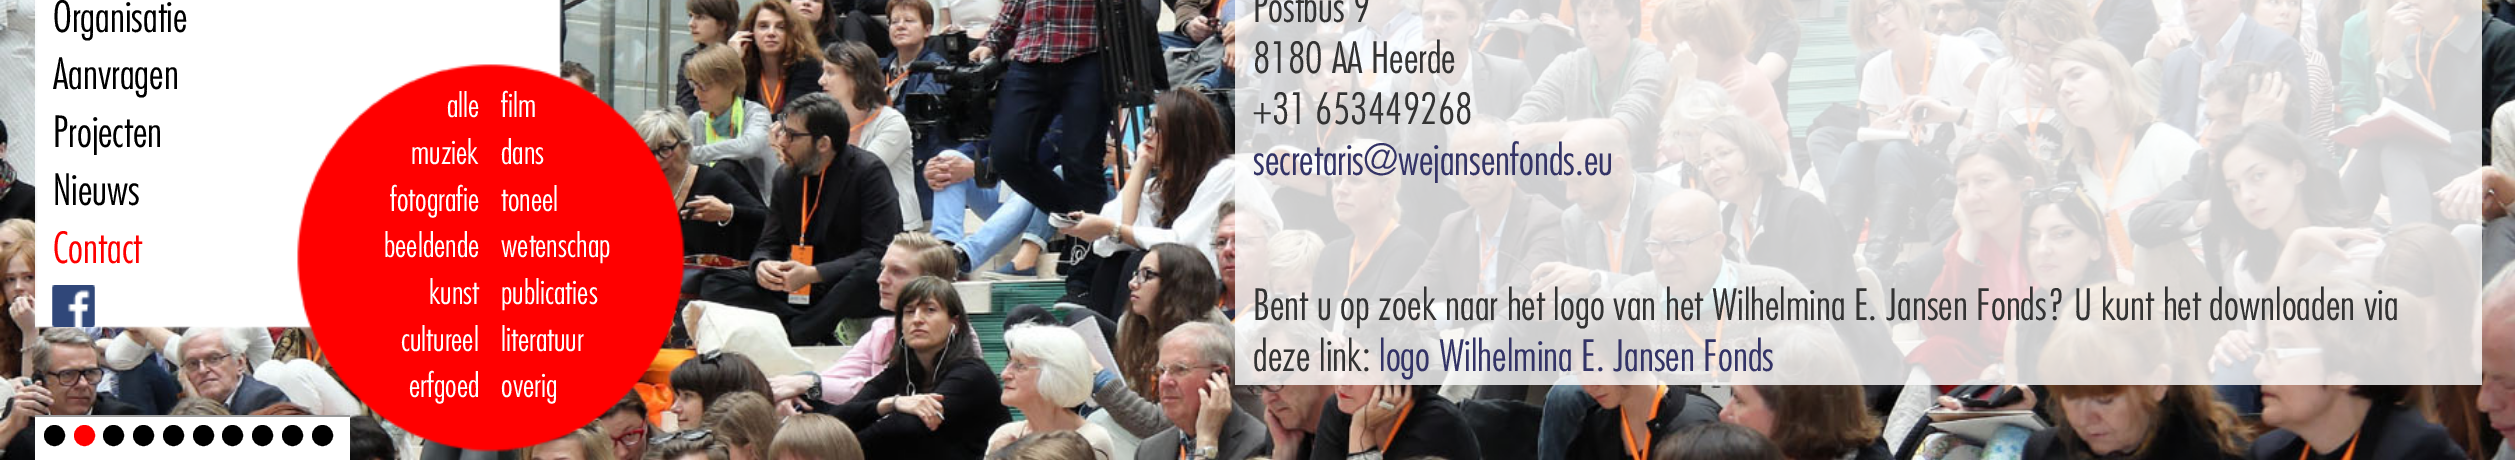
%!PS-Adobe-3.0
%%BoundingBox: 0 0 2515 460
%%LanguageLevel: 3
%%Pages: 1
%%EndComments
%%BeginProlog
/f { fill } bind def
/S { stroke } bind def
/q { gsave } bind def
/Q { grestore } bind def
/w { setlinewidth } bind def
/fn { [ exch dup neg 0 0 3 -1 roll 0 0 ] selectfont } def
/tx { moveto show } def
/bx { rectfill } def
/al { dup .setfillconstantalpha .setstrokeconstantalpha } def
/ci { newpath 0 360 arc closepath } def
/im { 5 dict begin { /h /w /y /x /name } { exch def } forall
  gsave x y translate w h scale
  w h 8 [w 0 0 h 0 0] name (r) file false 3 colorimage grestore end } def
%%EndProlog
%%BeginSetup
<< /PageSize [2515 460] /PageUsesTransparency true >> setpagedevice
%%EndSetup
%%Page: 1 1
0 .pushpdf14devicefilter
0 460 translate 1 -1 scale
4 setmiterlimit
1 setgray
0 0 2515 460 bx
(image0.raw) 0 0 2515 460 im
(image1.raw) 35 0 650 452 im
/Futura-Light 42 fn
0 setgray
(Organisatie) 53 32 tx
(Aanvragen) 53 89 tx
(Projecten) 53 147 tx
(Nieuws) 53 205 tx
1 0 0 setrgbcolor
(Contact) 53 263 tx
(image2.raw) 52 285 43 42 im
(image3.raw) 52 285 43 42 im
/Futura-Light 32.5 fn
1 setgray
(alle) 447 117 tx
(muziek) 411 164 tx
(fotografie) 390 211 tx
(beeldende) 384 257 tx
(kunst) 429 304 tx
(cultureel) 401 351 tx
(erfgoed) 409 397 tx
(film) 501 117 tx
(dans) 501 164 tx
(toneel) 501 211 tx
(wetenschap) 501 257 tx
(publicaties) 501 304 tx
(literatuur) 501 351 tx
(overig) 501 397 tx
0.8 al
1235 0 1247 385 bx
/Futura-Light 42 fn
1 al
0.2 setgray
(Postbus 9) 1253 22 tx
(8180 AA Heerde) 1253 73 tx
(+31 653449268) 1253 124 tx
0.2 0.2 0.4 setrgbcolor
(secretaris@wejansenfonds.eu) 1253 175 tx
0.2 setgray
(Bent u op zoek naar het logo van het Wilhelmina E. Jansen Fonds? U kunt het downloaden via) 1253 320 tx
(deze link:) 1253 371 tx
0.2 0.2 0.4 setrgbcolor
(logo Wilhelmina E. Jansen Fonds) 1379 371 tx
1 setgray
35 417 315 43 bx
0.6 setgray
35 415 315 2 bx
0 setgray
54.5 435.5 9.5 ci q f Q
2 w
S
1 0 0 setrgbcolor
84.5 435.5 9.5 ci q f Q
S
0 setgray
113.5 435.5 9.5 ci q f Q
S
143.5 435.5 9.5 ci q f Q
S
173.5 435.5 9.5 ci q f Q
S
203.5 435.5 9.5 ci q f Q
S
232.5 435.5 9.5 ci q f Q
S
262.5 435.5 9.5 ci q f Q
S
292.5 435.5 9.5 ci q f Q
S
322.5 435.5 9.5 ci q f Q
S
.poppdf14devicefilter showpage
%%EOF
